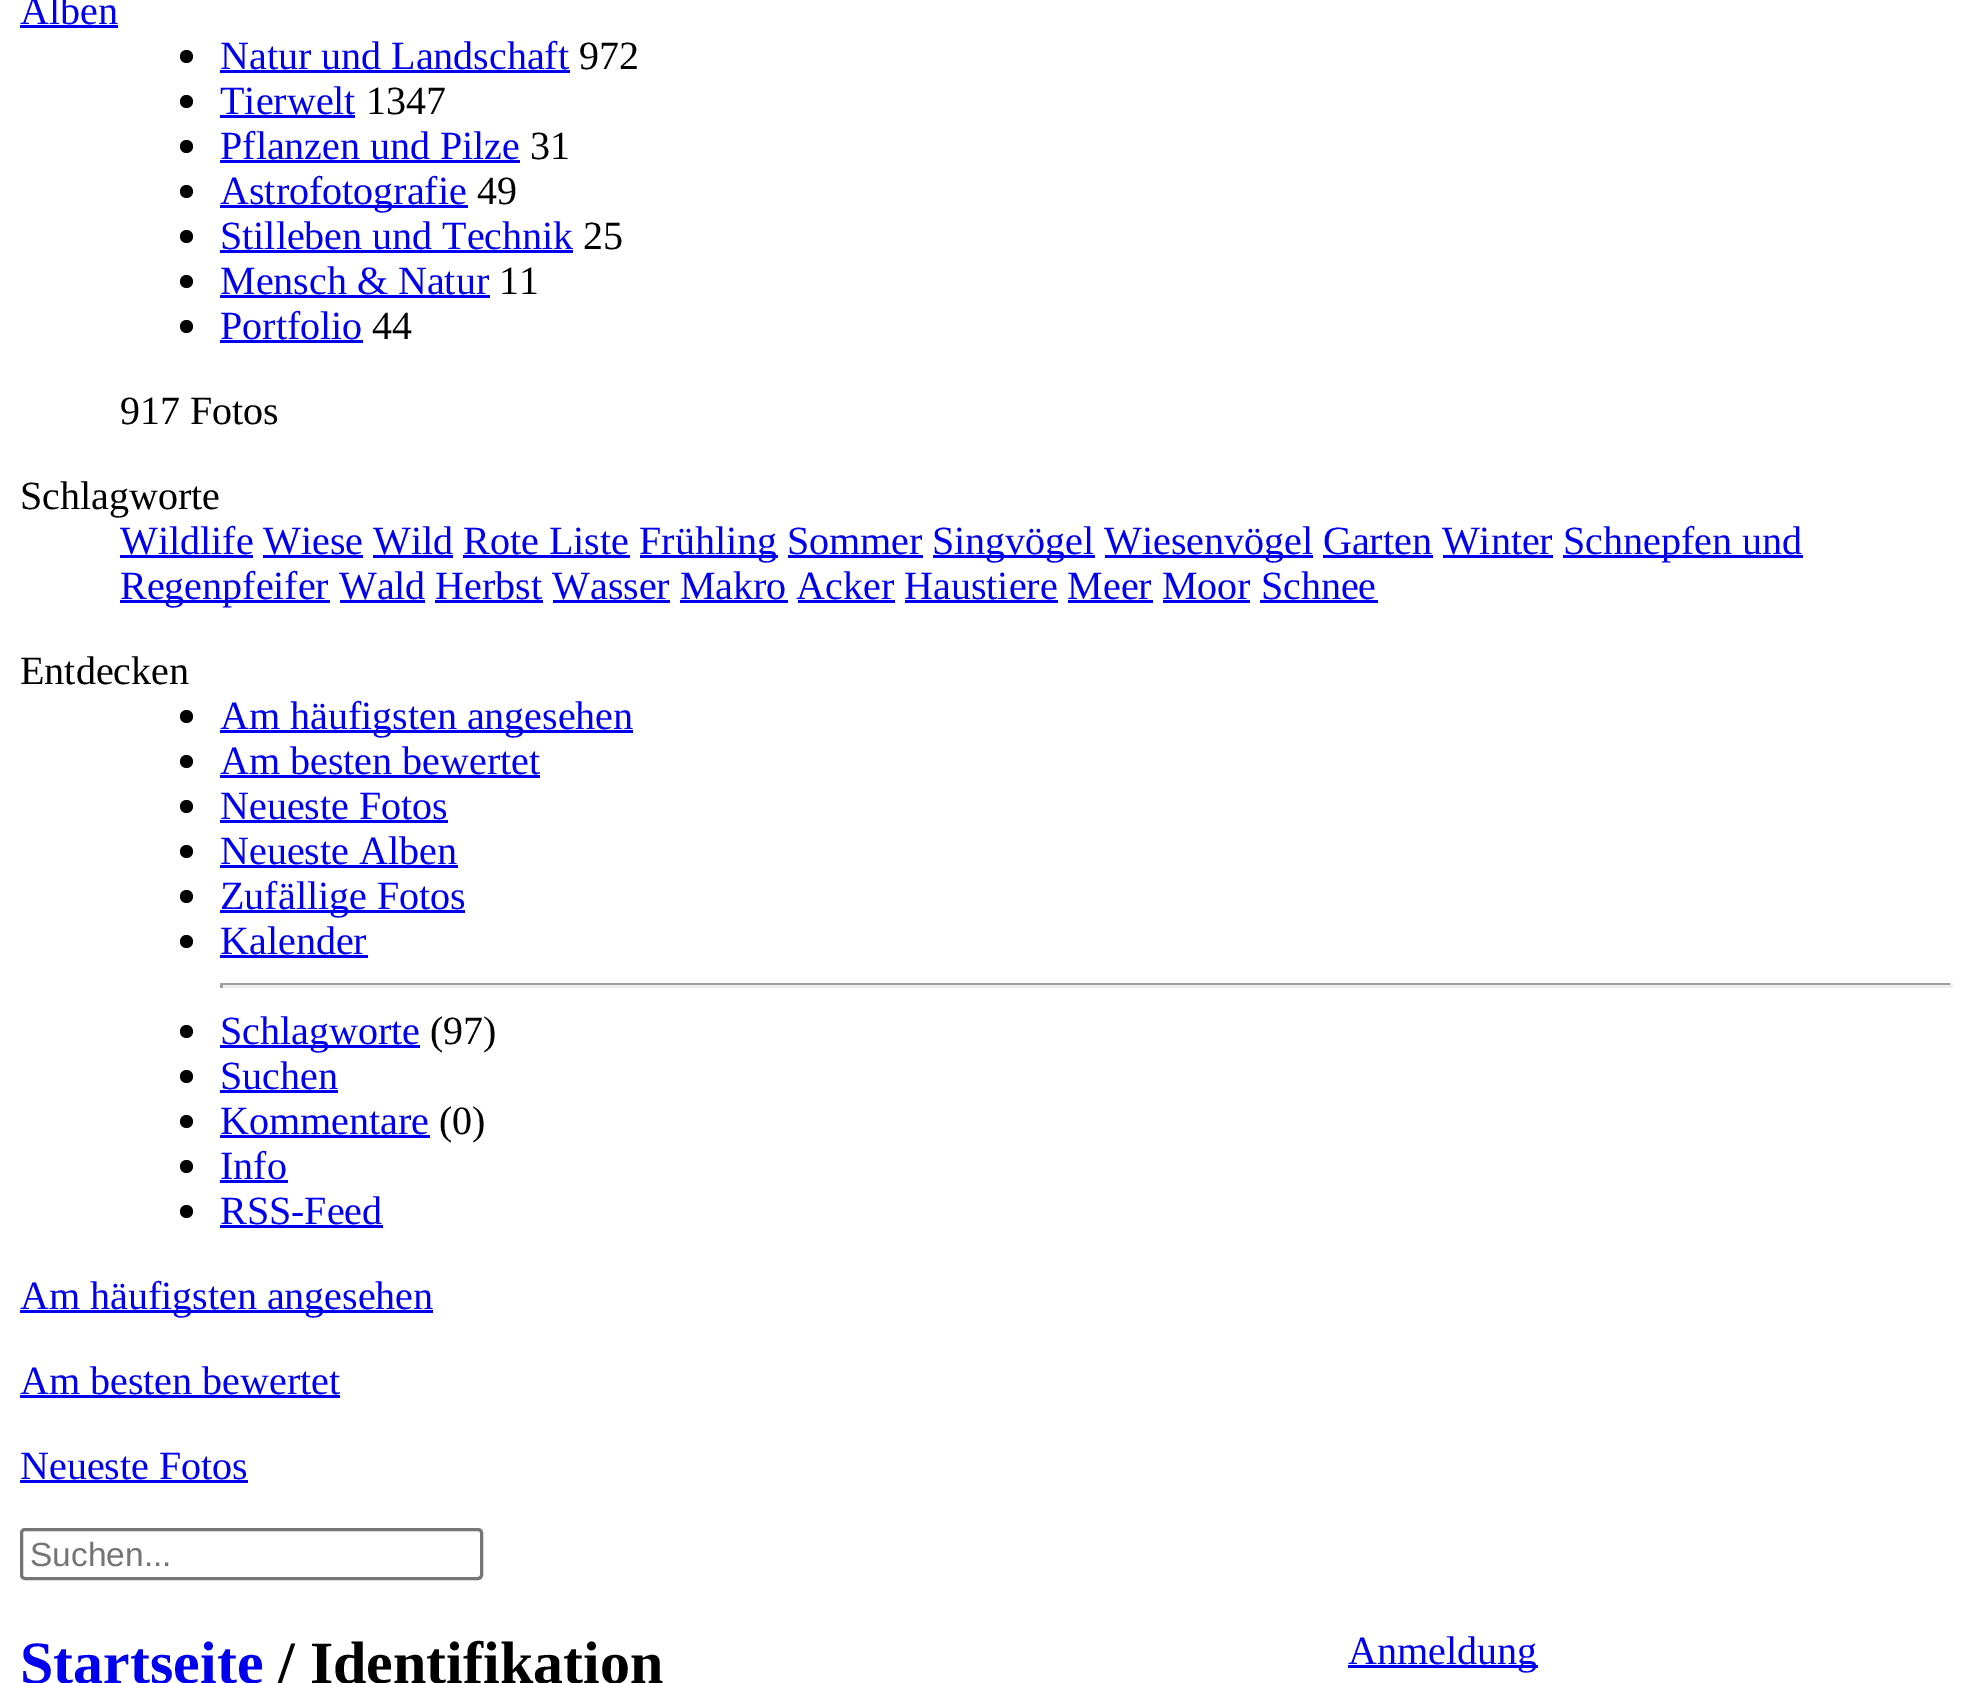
%!PS-Adobe-3.0
%%BoundingBox: 0 0 1971 1683
%%LanguageLevel: 3
%%Pages: 1
%%EndComments
%%BeginProlog
/f { fill } bind def
/S { stroke } bind def
/w { setlinewidth } bind def
/fn { [ exch dup neg 0 0 3 -1 roll 0 0 ] selectfont } def
/tx { moveto show } def
/bx { rectfill } def
/ci { newpath 0 360 arc closepath } def
/rr { 5 dict begin { /r /h /w /y /x } { exch def } forall
  x r add y moveto x w add y 2 copy h add r arct x w add y h add x 1 index r arct
  x y h add x y r arct x y 2 copy exch w add exch r arct closepath end } def
%%EndProlog
%%BeginSetup
<< /PageSize [1971 1683] >> setpagedevice
%%EndSetup
%%Page: 1 1
0 1683 translate 1 -1 scale
4 setmiterlimit
1 setgray
0 0 1971 1683 bx
/LiberationSerif-Regular 40 fn
0 0 0.933 setrgbcolor
(Alben) 20 24 tx
20 25 98 3 bx
0 setgray
186.5 56.5 6.5 ci f
0 0 0.933 setrgbcolor
(Natur und Landschaft) 220 69 tx
220 70 350 3 bx
0 setgray
(972) 579 69 tx
186.5 101.5 6.5 ci f
0 0 0.933 setrgbcolor
(Tierwelt) 220 114 tx
220 115 135 3 bx
0 setgray
(1347) 366 114 tx
186.5 146.5 6.5 ci f
0 0 0.933 setrgbcolor
(Pflanzen und Pilze) 220 159 tx
220 160 300 3 bx
0 setgray
(31) 530 159 tx
186.5 191.5 6.5 ci f
0 0 0.933 setrgbcolor
220 205 248 3 bx
(Astrofotografie) 220 204 tx
0 setgray
(49) 477 204 tx
186.5 236.5 6.5 ci f
0 0 0.933 setrgbcolor
(Stilleben und Technik) 220 249 tx
220 250 353 3 bx
0 setgray
(25) 583 249 tx
186.5 281.5 6.5 ci f
0 0 0.933 setrgbcolor
(Mensch & Natur) 220 294 tx
220 295 270 3 bx
0 setgray
(11) 499 294 tx
186.5 326.5 6.5 ci f
0 0 0.933 setrgbcolor
(Portfolio) 220 339 tx
220 340 143 3 bx
0 setgray
(44) 372 339 tx
(917 Fotos) 120 424 tx
(Schlagworte) 20 509 tx
0 0 0.933 setrgbcolor
(Wildlife Wiese Wild Rote Liste) 120 554 tx
120 555 133 3 bx
640 555 138 3 bx
(Frühling Sommer) 639 554 tx
933 555 162 3 bx
(Singvögel) 932 554 tx
1105 555 208 3 bx
(Wiesenvögel Garten Winter) 1104 554 tx
1563 555 240 3 bx
(Schnepfen und) 1563 554 tx
263 555 100 3 bx
373 555 80 3 bx
463 555 167 3 bx
788 555 135 3 bx
1323 555 110 3 bx
1443 555 110 3 bx
120 600 210 3 bx
(Regenpfeifer Wald Herbst Wasser Makro Acker Haustiere Meer Moor Schnee) 120 599 tx
340 600 85 3 bx
435 600 108 3 bx
553 600 117 3 bx
680 600 108 3 bx
798 600 97 3 bx
905 600 153 3 bx
1068 600 85 3 bx
1163 600 87 3 bx
1260 600 118 3 bx
0 setgray
(Entdecken) 20 684 tx
186.5 716.5 6.5 ci f
0 0 0.933 setrgbcolor
220 730 413 3 bx
(Am häufigsten angesehen) 220 729 tx
0 setgray
186.5 761.5 6.5 ci f
0 0 0.933 setrgbcolor
(Am besten bewertet) 220 774 tx
220 775 320 3 bx
0 setgray
186.5 806.5 6.5 ci f
0 0 0.933 setrgbcolor
(Neueste Fotos) 220 819 tx
220 820 228 3 bx
0 setgray
186.5 851.5 6.5 ci f
0 0 0.933 setrgbcolor
(Neueste Alben) 220 864 tx
220 865 238 3 bx
0 setgray
186.5 896.5 6.5 ci f
0 0 0.933 setrgbcolor
220 910 245 3 bx
(Zufällige Fotos) 220 909 tx
0 setgray
186.5 941.5 6.5 ci f
0 0 0.933 setrgbcolor
(Kalender) 220 954 tx
220 955 148 3 bx
0.624 setgray
220 983 1733 2 bx
0.933 setgray
1950 983 3 5 bx
220 985 1733 3 bx
0.624 setgray
220 983 3 5 bx
0 setgray
186.5 1031.5 6.5 ci f
0 0 0.933 setrgbcolor
220 1045 200 3 bx
(Schlagworte) 220 1044 tx
0 setgray
(\(97\)) 430 1044 tx
186.5 1076.5 6.5 ci f
0 0 0.933 setrgbcolor
(Suchen) 220 1089 tx
220 1090 118 3 bx
0 setgray
186.5 1121.5 6.5 ci f
0 0 0.933 setrgbcolor
(Kommentare) 220 1134 tx
220 1135 210 3 bx
0 setgray
(\(0\)) 439 1134 tx
186.5 1166.5 6.5 ci f
0 0 0.933 setrgbcolor
(Info) 220 1179 tx
220 1180 68 3 bx
0 setgray
186.5 1211.5 6.5 ci f
0 0 0.933 setrgbcolor
(RSS-Feed) 220 1224 tx
220 1225 163 3 bx
20 1310 413 3 bx
(Am häufigsten angesehen) 20 1309 tx
(Am besten bewertet) 20 1394 tx
20 1395 320 3 bx
(Neueste Fotos) 20 1479 tx
20 1480 228 3 bx
0.463 setgray
3 w
21.5 1529.5 460 49 3.5 rr S
/LiberationSans-Regular 33.5 fn
0.459 setgray
(Suchen...) 30 1566 tx
0 0 0.933 setrgbcolor
1348 1665 190 3 bx
/LiberationSerif-Regular 40 fn
(Anmeldung) 1348 1664 tx
/LiberationSerif-Bold 60 fn
(Startseite) 20 1683 tx
0 setgray
(/ Identifikation) 278 1683 tx
showpage
%%EOF
